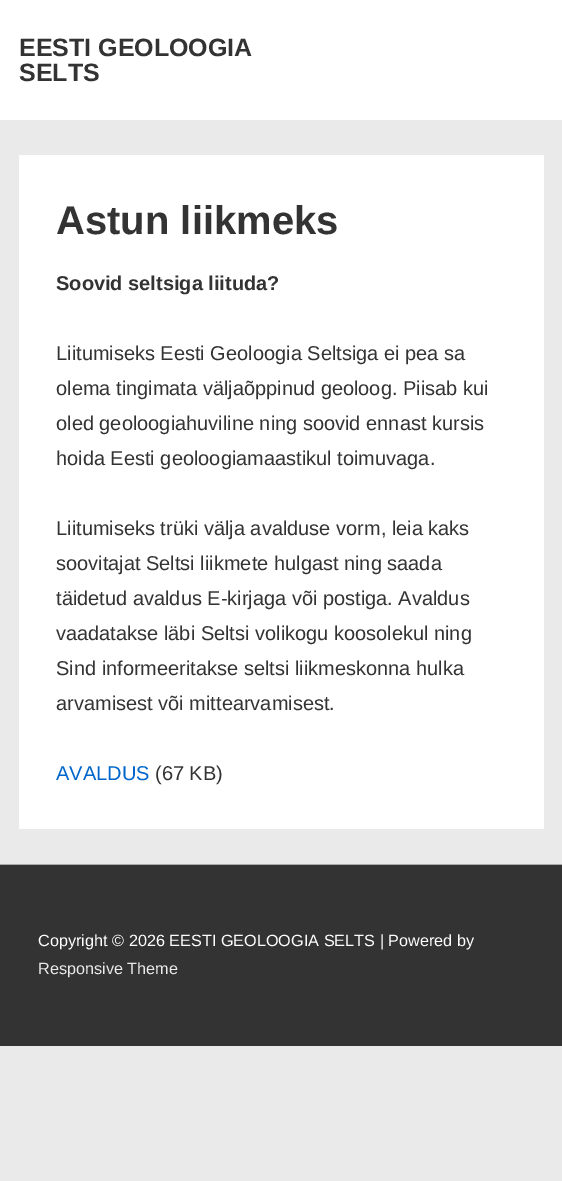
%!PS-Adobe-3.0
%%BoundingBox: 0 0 562 1181
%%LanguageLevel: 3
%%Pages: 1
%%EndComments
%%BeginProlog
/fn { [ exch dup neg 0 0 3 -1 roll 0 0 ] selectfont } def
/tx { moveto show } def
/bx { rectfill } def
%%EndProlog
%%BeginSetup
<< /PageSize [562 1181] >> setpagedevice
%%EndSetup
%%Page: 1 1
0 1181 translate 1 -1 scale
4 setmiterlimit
0.918 setgray
0 0 562 1181 bx
1 setgray
0 0 562 120 bx
/LiberationSans-Bold 25 fn
0.2 setgray
(EESTI GEOLOOGIA) 19 56 tx
(SELTS) 19 81 tx
1 setgray
19 155 525 674 bx
/LiberationSans-Bold 40 fn
0.2 setgray
(Astun liikmeks) 56 234 tx
/LiberationSans-Bold 20 fn
(Soovid seltsiga liituda?) 56 290 tx
/LiberationSans-Regular 20 fn
(Liitumiseks Eesti Geoloogia Seltsiga ei pea sa) 56 360 tx
(olema tingimata väljaõppinud geoloog. Piisab kui) 56 395 tx
(oled geoloogiahuviline ning soovid ennast kursis) 56 430 tx
(hoida Eesti geoloogiamaastikul toimuvaga.) 56 465 tx
(Liitumiseks trüki välja avalduse vorm, leia kaks) 56 535 tx
(soovitajat Seltsi liikmete hulgast ning saada) 56 570 tx
(täidetud avaldus E-kirjaga või postiga. Avaldus) 56 605 tx
(vaadatakse läbi Seltsi volikogu koosolekul ning) 56 640 tx
(Sind informeeritakse seltsi liikmeskonna hulka) 56 675 tx
(arvamisest või mittearvamisest.) 56 710 tx
0 0.4 0.8 setrgbcolor
(AVALDUS) 56 780 tx
0.2 setgray
(\(67 KB\)) 155 780 tx
0 865 562 181 bx
0.667 setgray
0 864 562 1 bx
/LiberationSans-Regular 16.25 fn
1 setgray
(Copyright © 2026 EESTI GEOLOOGIA SELTS | Powered by) 38 946 tx
0.918 setgray
(Responsive Theme) 38 974 tx
showpage
%%EOF
